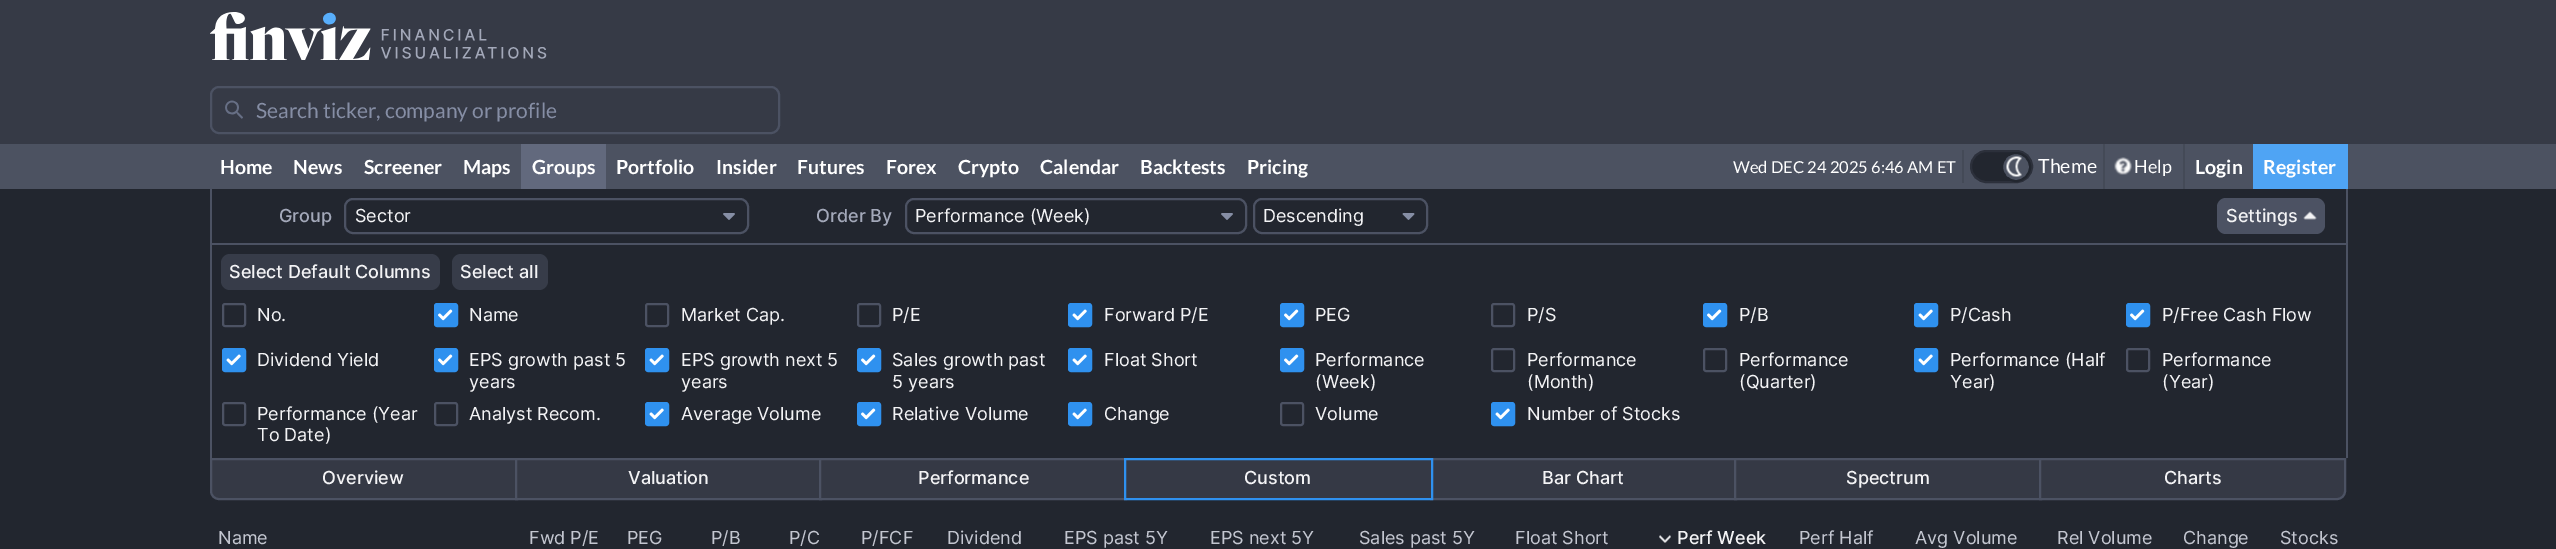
%!PS-Adobe-3.0
%%BoundingBox: 0 0 2556 549
%%LanguageLevel: 3
%%Pages: 1
%%EndComments
%%BeginProlog
/m { moveto } bind def
/l { lineto } bind def
/c { curveto } bind def
/h { closepath } bind def
/f { fill } bind def
/S { stroke } bind def
/q { gsave } bind def
/Q { grestore } bind def
/w { setlinewidth } bind def
/fn { [ exch dup neg 0 0 3 -1 roll 0 0 ] selectfont } def
/tx { moveto show } def
/bx { rectfill } def
/ci { newpath 0 360 arc closepath } def
/rr { 5 dict begin { /r /h /w /y /x } { exch def } forall
  x r add y moveto x w add y 2 copy h add r arct x w add y h add x 1 index r arct
  x y h add x y r arct x y 2 copy exch w add exch r arct closepath end } def
/im { 5 dict begin { /h /w /y /x /name } { exch def } forall
  gsave x y translate w h scale
  w h 8 [w 0 0 h 0 0] name (r) file false 3 colorimage grestore end } def
%%EndProlog
%%BeginSetup
<< /PageSize [2556 549] >> setpagedevice
%%EndSetup
%%Page: 1 1
0 549 translate 1 -1 scale
4 setmiterlimit
0.133 0.149 0.184 setrgbcolor
0 0 2556 549 bx
0.212 0.227 0.275 setrgbcolor
0 0 2556 144 bx
(image0.raw) 210 12 337 48 im
0.298 0.322 0.388 setrgbcolor
2 w
211 87 568 46 8 rr S
(image1.raw) 225 100 18 19 im
/Lato-Regular 21 fn
0.525 0.557 0.647 setrgbcolor
(Search ticker, company or profile) 256 118 tx
0.298 0.322 0.38 setrgbcolor
0 144 2556 45 bx
/Lato-Bold 19.5 fn
1 setgray
(Home) 220 174 tx
(News) 293 174 tx
(Screener) 364 174 tx
(Maps) 463 174 tx
0.384 0.412 0.49 setrgbcolor
521 144 85 45 bx
1 setgray
(Groups) 532 174 tx
(Portfolio) 616 174 tx
(Insider) 716 174 tx
(Futures) 797 174 tx
(Forex) 886 174 tx
(Crypto) 958 174 tx
(Calendar) 1040 174 tx
(Backtests) 1140 174 tx
(Pricing) 1247 174 tx
/Lato-Regular 16.5 fn
(Wed DEC 24 2025 6:46 AM ET) 1733 173 tx
0.267 0.29 0.341 setrgbcolor
1962 150 2 33 bx
0.133 0.149 0.184 setrgbcolor
1971 151 61 31 15.5 rr q f Q
0.173 0.188 0.231 setrgbcolor
S
0.298 0.322 0.38 setrgbcolor
2016 167 14 ci q f Q
0.133 0.149 0.184 setrgbcolor
S
(image2.raw) 2006 156 16 21 im
/Lato-Regular 19.5 fn
1 setgray
(Theme) 2038 173 tx
0.267 0.29 0.341 setrgbcolor
2103 144 2 45 bx
(image3.raw) 2114 157 18 18 im
/Lato-Regular 18 fn
1 setgray
(Help) 2134 173 tx
0.267 0.29 0.341 setrgbcolor
2183 144 2 45 bx
/Lato-Bold 19.5 fn
1 setgray
(Login) 2195 174 tx
0.31 0.643 0.957 setrgbcolor
2253 144 95 45 bx
1 setgray
(Register) 2263 174 tx
0.298 0.322 0.388 setrgbcolor
2346 189 2 54 bx
210 189 2 54 bx
/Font-Medium 18 fn
0.639 0.659 0.725 setrgbcolor
(Group) 279 222 tx
(image4.raw) 723 213 12 7 im
0.298 0.322 0.388 setrgbcolor
345 199 403 34 8 rr S
/Font-Regular 18 fn
0.953 0.953 0.961 setrgbcolor
(Sector) 355 222 tx
/Font-Medium 18 fn
0.639 0.659 0.725 setrgbcolor
(Order By) 816 222 tx
(image4.raw) 1221 213 12 7 im
0.298 0.322 0.388 setrgbcolor
906 199 340 34 8 rr S
/Font-Regular 18 fn
0.953 0.953 0.961 setrgbcolor
(Performance \(Week\)) 915 222 tx
(image5.raw) 1402 213 13 7 im
0.298 0.322 0.388 setrgbcolor
1254 199 173 34 8 rr S
0.953 0.953 0.961 setrgbcolor
(Descending) 1263 222 tx
0.298 0.322 0.388 setrgbcolor
2217 198 108 36 9 rr f
/Font-Medium 18 fn
0.953 0.953 0.961 setrgbcolor
(Settings) 2226 222 tx
(image6.raw) 2303 211 14 9 im
0.298 0.322 0.388 setrgbcolor
210 243 2138 2 bx
2346 243 2 215 bx
210 243 2 215 bx
0.216 0.235 0.286 setrgbcolor
221 254 219 36 9 rr f
0.953 0.953 0.961 setrgbcolor
(Select Default Columns) 229 278 tx
0.216 0.235 0.286 setrgbcolor
452 254 96 36 9 rr f
0.953 0.953 0.961 setrgbcolor
(Select all) 460 278 tx
0.298 0.322 0.388 setrgbcolor
223 304 22 22 2 rr S
/Font-Regular 18 fn
0.953 0.953 0.961 setrgbcolor
(No.) 257 321 tx
0.184 0.569 0.937 setrgbcolor
435 304 22 22 2 rr q f Q
S
(image7.raw) 438 309 15 12 im
0.953 0.953 0.961 setrgbcolor
(Name) 469 321 tx
0.298 0.322 0.388 setrgbcolor
646 304 22 22 2 rr S
0.953 0.953 0.961 setrgbcolor
(Market Cap.) 681 321 tx
0.298 0.322 0.388 setrgbcolor
858 304 22 22 2 rr S
0.953 0.953 0.961 setrgbcolor
(P/E) 892 321 tx
0.184 0.569 0.937 setrgbcolor
1069 304 22 22 2 rr q f Q
S
(image8.raw) 1072 309 15 12 im
0.953 0.953 0.961 setrgbcolor
(Forward P/E) 1104 321 tx
0.184 0.569 0.937 setrgbcolor
1281 304 22 22 2 rr q f Q
S
(image7.raw) 1284 309 15 12 im
0.953 0.953 0.961 setrgbcolor
(PEG) 1315 321 tx
0.298 0.322 0.388 setrgbcolor
1492 304 22 22 2 rr S
0.953 0.953 0.961 setrgbcolor
(P/S) 1527 321 tx
0.184 0.569 0.937 setrgbcolor
1704 304 22 22 2 rr q f Q
S
(image7.raw) 1707 309 15 12 im
0.953 0.953 0.961 setrgbcolor
(P/B) 1739 321 tx
0.184 0.569 0.937 setrgbcolor
1915 304 22 22 2 rr q f Q
S
(image8.raw) 1918 309 15 12 im
0.953 0.953 0.961 setrgbcolor
(P/Cash) 1950 321 tx
0.184 0.569 0.937 setrgbcolor
2127 304 22 22 2 rr q f Q
S
(image7.raw) 2130 309 15 12 im
0.953 0.953 0.961 setrgbcolor
(P/Free Cash Flow) 2162 321 tx
0.184 0.569 0.937 setrgbcolor
223 349 22 22 2 rr q f Q
S
(image8.raw) 226 354 15 12 im
0.953 0.953 0.961 setrgbcolor
(Dividend Yield) 257 366 tx
0.184 0.569 0.937 setrgbcolor
435 349 22 22 2 rr q f Q
S
(image7.raw) 438 354 15 12 im
0.953 0.953 0.961 setrgbcolor
(EPS growth past 5) 469 366 tx
(years) 469 388 tx
0.184 0.569 0.937 setrgbcolor
646 349 22 22 2 rr q f Q
S
(image8.raw) 649 354 15 12 im
0.953 0.953 0.961 setrgbcolor
(EPS growth next 5) 681 366 tx
(years) 681 388 tx
0.184 0.569 0.937 setrgbcolor
858 349 22 22 2 rr q f Q
S
(image7.raw) 861 354 15 12 im
0.953 0.953 0.961 setrgbcolor
(Sales growth past) 892 366 tx
(5 years) 892 388 tx
0.184 0.569 0.937 setrgbcolor
1069 349 22 22 2 rr q f Q
S
(image8.raw) 1072 354 15 12 im
0.953 0.953 0.961 setrgbcolor
(Float Short) 1104 366 tx
0.184 0.569 0.937 setrgbcolor
1281 349 22 22 2 rr q f Q
S
(image7.raw) 1284 354 15 12 im
0.953 0.953 0.961 setrgbcolor
(Performance) 1315 366 tx
(\(Week\)) 1315 388 tx
0.298 0.322 0.388 setrgbcolor
1492 349 22 22 2 rr S
0.953 0.953 0.961 setrgbcolor
(Performance) 1527 366 tx
(\(Month\)) 1527 388 tx
0.298 0.322 0.388 setrgbcolor
1704 349 22 22 2 rr S
0.953 0.953 0.961 setrgbcolor
(Performance) 1739 366 tx
(\(Quarter\)) 1739 388 tx
0.184 0.569 0.937 setrgbcolor
1915 349 22 22 2 rr q f Q
S
(image8.raw) 1918 354 15 12 im
0.953 0.953 0.961 setrgbcolor
(Performance \(Half) 1950 366 tx
(Year\)) 1950 388 tx
0.298 0.322 0.388 setrgbcolor
2127 349 22 22 2 rr S
0.953 0.953 0.961 setrgbcolor
(Performance) 2162 366 tx
(\(Year\)) 2162 388 tx
0.298 0.322 0.388 setrgbcolor
223 403 22 22 2 rr S
0.953 0.953 0.961 setrgbcolor
(Performance \(Year) 257 420 tx
(To Date\)) 257 441 tx
0.298 0.322 0.388 setrgbcolor
435 403 22 22 2 rr S
0.953 0.953 0.961 setrgbcolor
(Analyst Recom.) 469 420 tx
0.184 0.569 0.937 setrgbcolor
646 403 22 22 2 rr q f Q
S
(image8.raw) 649 408 15 12 im
0.953 0.953 0.961 setrgbcolor
(Average Volume) 681 420 tx
0.184 0.569 0.937 setrgbcolor
858 403 22 22 2 rr q f Q
S
(image7.raw) 861 408 15 12 im
0.953 0.953 0.961 setrgbcolor
(Relative Volume) 892 420 tx
0.184 0.569 0.937 setrgbcolor
1069 403 22 22 2 rr q f Q
S
(image8.raw) 1072 408 15 12 im
0.953 0.953 0.961 setrgbcolor
(Change) 1104 420 tx
0.298 0.322 0.388 setrgbcolor
1281 403 22 22 2 rr S
0.953 0.953 0.961 setrgbcolor
(Volume) 1315 420 tx
0.184 0.569 0.937 setrgbcolor
1492 403 22 22 2 rr q f Q
S
(image8.raw) 1495 408 15 12 im
0.953 0.953 0.961 setrgbcolor
(Number of Stocks) 1527 420 tx
0.208 0.224 0.271 setrgbcolor
211 459 m 517 459 l 517 499 l 219 499 l 214.5 499 211 495.5 211 491 c h q f Q
0.298 0.322 0.388 setrgbcolor
S
/Font-Medium 18 fn
0.953 0.953 0.961 setrgbcolor
(Overview) 322 484 tx
0.208 0.224 0.271 setrgbcolor
517 460 302 38 bx
0.298 0.322 0.388 setrgbcolor
516 459 305 40 rectstroke
0.953 0.953 0.961 setrgbcolor
(Valuation) 628 484 tx
0.208 0.224 0.271 setrgbcolor
821 460 303 38 bx
0.298 0.322 0.388 setrgbcolor
820 459 306 40 rectstroke
0.953 0.953 0.961 setrgbcolor
(Performance) 918 484 tx
0.208 0.224 0.271 setrgbcolor
1433 460 301 38 bx
0.298 0.322 0.388 setrgbcolor
1431 459 305 40 rectstroke
0.208 0.224 0.271 setrgbcolor
1125 459 m 1432 459 l 1432 499 l 1125 499 l h q f Q
0.184 0.569 0.937 setrgbcolor
S
0.953 0.953 0.961 setrgbcolor
(Custom) 1244 484 tx
(Bar Chart) 1542 484 tx
0.208 0.224 0.271 setrgbcolor
1736 460 303 38 bx
0.298 0.322 0.388 setrgbcolor
1735 459 306 40 rectstroke
0.953 0.953 0.961 setrgbcolor
(Spectrum) 1846 484 tx
0.208 0.224 0.271 setrgbcolor
2040 459 m 2345 459 l 2345 491 l 2345 495.5 2341.5 499 2337 499 c 2040 499 l h q f Q
0.298 0.322 0.388 setrgbcolor
S
0.953 0.953 0.961 setrgbcolor
(Charts) 2164 484 tx
/Font-Regular 18 fn
0.765 0.776 0.816 setrgbcolor
(Name) 218 544 tx
(Fwd P/E) 529 544 tx
(PEG) 627 544 tx
(P/B) 711 544 tx
(P/C) 789 544 tx
(P/FCF) 861 544 tx
(Dividend) 947 544 tx
(EPS past 5Y) 1064 544 tx
(EPS next 5Y) 1210 544 tx
(Sales past 5Y) 1359 544 tx
(Float Short) 1515 544 tx
(image9.raw) 1659 535 12 8 im
/Font-Medium 18 fn
0.953 0.953 0.961 setrgbcolor
(Perf Week) 1677 544 tx
/Font-Regular 18 fn
0.765 0.776 0.816 setrgbcolor
(Perf Half) 1799 544 tx
(Avg Volume) 1915 544 tx
(Rel Volume) 2057 544 tx
(Change) 2183 544 tx
(Stocks) 2280 544 tx
showpage
%%EOF
